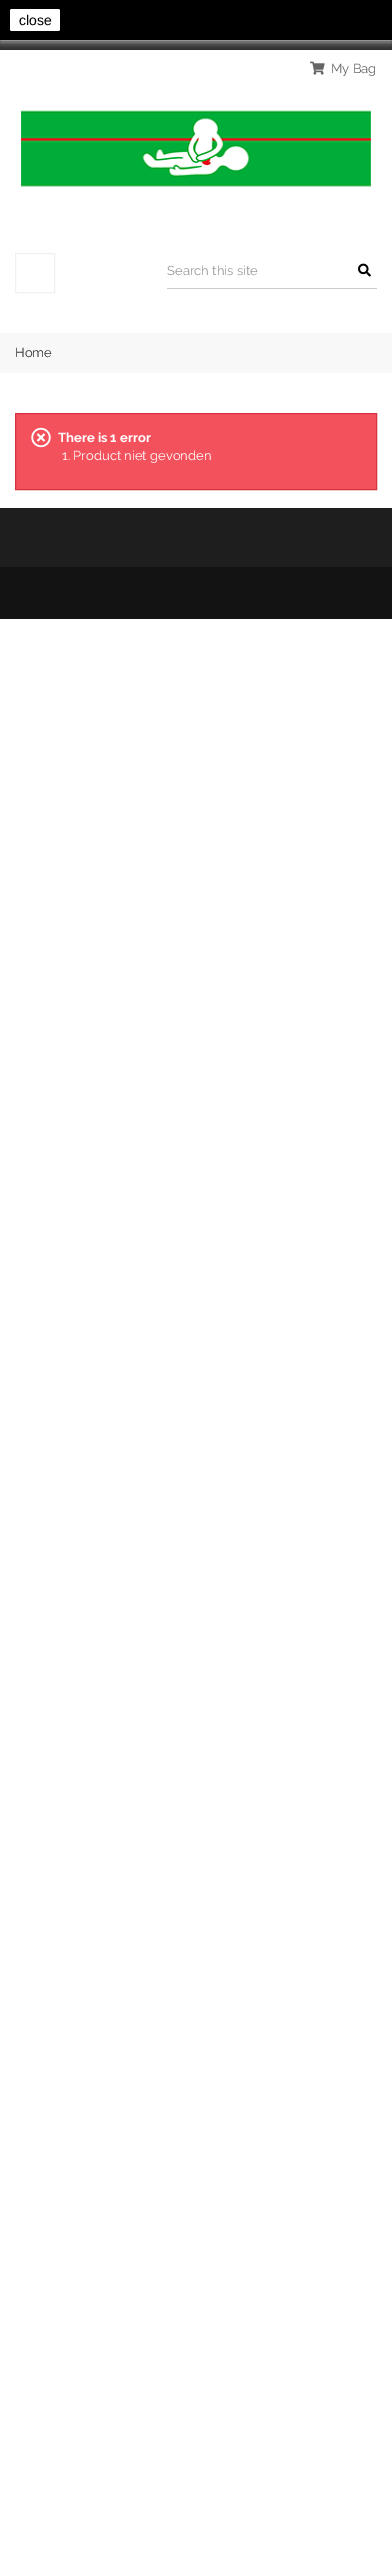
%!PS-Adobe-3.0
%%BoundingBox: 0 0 392 2550
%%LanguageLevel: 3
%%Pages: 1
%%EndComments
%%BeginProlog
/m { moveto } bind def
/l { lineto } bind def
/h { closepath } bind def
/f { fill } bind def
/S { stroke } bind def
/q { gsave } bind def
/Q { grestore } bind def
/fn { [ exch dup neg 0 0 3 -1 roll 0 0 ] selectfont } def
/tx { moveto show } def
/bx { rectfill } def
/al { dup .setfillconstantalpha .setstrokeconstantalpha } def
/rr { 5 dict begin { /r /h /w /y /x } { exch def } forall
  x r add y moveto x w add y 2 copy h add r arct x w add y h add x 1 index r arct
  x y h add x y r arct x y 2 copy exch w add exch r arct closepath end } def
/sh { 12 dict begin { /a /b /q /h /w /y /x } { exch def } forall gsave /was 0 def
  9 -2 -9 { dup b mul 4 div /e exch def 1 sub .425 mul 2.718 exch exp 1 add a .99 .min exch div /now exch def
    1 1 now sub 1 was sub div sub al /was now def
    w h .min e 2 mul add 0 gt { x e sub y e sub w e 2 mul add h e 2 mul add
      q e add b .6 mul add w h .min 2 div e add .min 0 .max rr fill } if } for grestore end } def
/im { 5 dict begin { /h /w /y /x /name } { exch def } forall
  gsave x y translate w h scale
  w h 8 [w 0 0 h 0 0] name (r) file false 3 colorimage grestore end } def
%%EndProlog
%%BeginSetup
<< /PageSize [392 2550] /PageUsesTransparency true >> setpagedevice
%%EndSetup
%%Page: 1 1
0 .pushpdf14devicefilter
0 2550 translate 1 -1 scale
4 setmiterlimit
1 setgray
0 0 392 2550 bx
0.161 setgray
0 40 392 10 bx
1 setgray
0 0 392 40 0 5 1 sh
0 setgray
0 0 392 40 bx
1 setgray
10 9 50 22 2 rr f
/LiberationSans-Regular 14 fn
0 setgray
(close) 19 25 tx
(image0.raw) 310 61 15 14 im
/Raleway-Regular 13 fn
0.4 setgray
(My Bag) 331 73 tx
(image1.raw) 21 110 350 77 im
0.941 setgray
15.5 253.5 39 39 rectstroke
0.8 setgray
167 288 210 1 bx
0.6 setgray
(Search this site) 167 275 tx
(image2.raw) 358 263 13 14 im
0.973 setgray
0 333 392 40 bx
0.2 setgray
(Home) 15 357 tx
0.953 0.318 0.361 setrgbcolor
15.5 413.5 m 376.5 413.5 l 376.5 489.5 l 15.5 489.5 l h q f Q
0.831 0.196 0.239 setrgbcolor
S
(image3.raw) 31 427 20 21 im
/Raleway-Bold 13 fn
1 setgray
(There is 1 error) 58 442 tx
/Raleway-Regular 13 fn
(1. Product niet gevonden) 62 460 tx
0.118 setgray
0 508 392 59 bx
0.075 setgray
0 567 392 52 bx
.poppdf14devicefilter showpage
%%EOF
